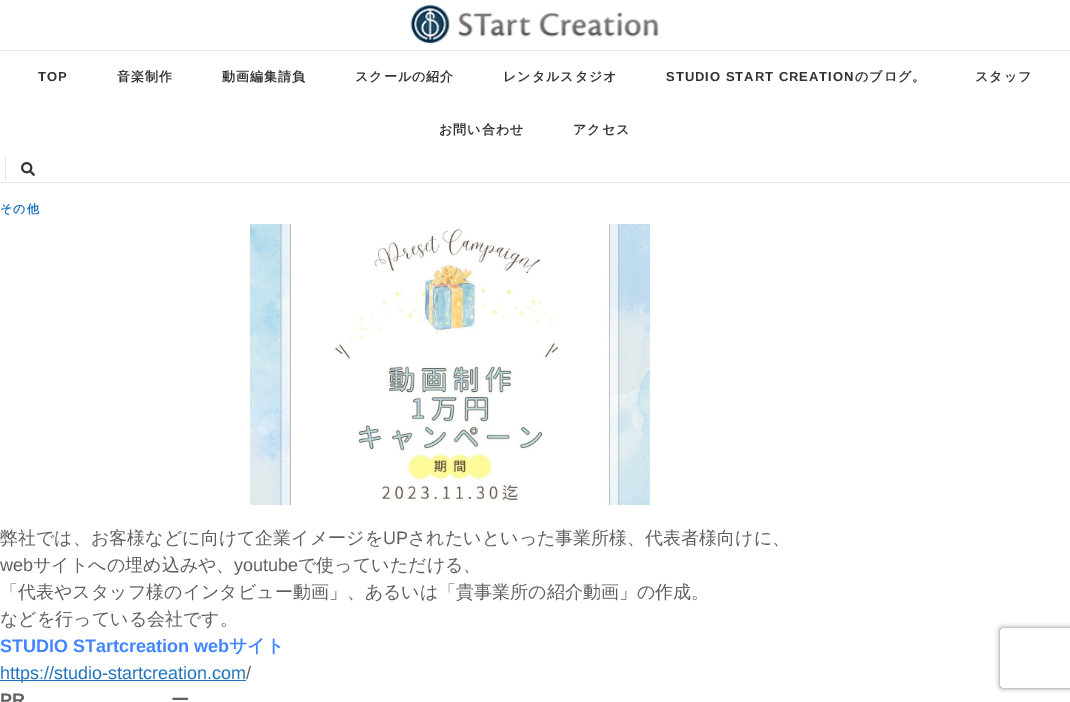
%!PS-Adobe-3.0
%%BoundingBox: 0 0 1070 702
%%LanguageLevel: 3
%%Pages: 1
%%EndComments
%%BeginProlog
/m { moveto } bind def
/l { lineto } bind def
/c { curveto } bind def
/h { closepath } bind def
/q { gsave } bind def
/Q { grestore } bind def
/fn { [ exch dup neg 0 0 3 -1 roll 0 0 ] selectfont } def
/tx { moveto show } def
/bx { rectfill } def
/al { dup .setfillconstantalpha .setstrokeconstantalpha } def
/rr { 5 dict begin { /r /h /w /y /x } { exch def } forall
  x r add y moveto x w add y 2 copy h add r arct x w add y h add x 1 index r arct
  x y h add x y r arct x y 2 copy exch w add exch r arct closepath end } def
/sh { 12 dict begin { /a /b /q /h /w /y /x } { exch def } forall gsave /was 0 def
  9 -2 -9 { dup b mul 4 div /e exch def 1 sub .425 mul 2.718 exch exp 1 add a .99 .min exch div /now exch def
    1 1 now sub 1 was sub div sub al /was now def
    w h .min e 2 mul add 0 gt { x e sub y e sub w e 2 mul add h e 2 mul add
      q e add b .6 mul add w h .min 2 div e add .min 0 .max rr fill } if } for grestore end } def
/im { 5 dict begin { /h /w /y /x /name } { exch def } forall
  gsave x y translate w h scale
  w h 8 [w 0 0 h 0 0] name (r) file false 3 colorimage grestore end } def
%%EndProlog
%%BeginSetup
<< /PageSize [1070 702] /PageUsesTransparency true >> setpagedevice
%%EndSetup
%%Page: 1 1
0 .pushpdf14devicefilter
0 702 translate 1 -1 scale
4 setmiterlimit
1 setgray
0 0 1070 702 bx
(image0.raw) 410 5 249 39 im
0.867 0.918 0.961 setrgbcolor
0 50 1070 1 bx
0 182 1070 1 bx
/LiberationSans-Bold 13 fn
0.2 setgray
38 81 m 1 0 (TOP) ashow
/WenQuanYiZenHei-Bold 13 fn
117 81 m 1 0 (音楽制作) ashow
222 81 m 1 0 (動画編集請負) ashow
355 81 m 1 0 (スクールの紹介) ashow
503 81 m 1 0 (レンタルスタジオ) ashow
/LiberationSans-Bold 13 fn
666 81 m 1 0 (STUDIO START CREATION) ashow
/WenQuanYiZenHei-Bold 13 fn
855 81 m 1 0 (のブログ。) ashow
975 81 m 1 0 (スタッフ) ashow
439 134 m 1 0 (お問い合わせ) ashow
573 134 m 1 0 (アクセス) ashow
0.867 0.918 0.961 setrgbcolor
5 157 1 25 bx
(image1.raw) 21 162 14 14 im
/WenQuanYiZenHei-Bold 12 fn
0.118 0.451 0.745 setrgbcolor
0 213 m 1 0 (その他) ashow
(image2.raw) 250 224 400 281 im
/WenQuanYiZenHei-Medium 18 fn
0.376 setgray
(弊社では、お客様などに向けて企業イメージを) 0 544 tx
/LiberationSans-Regular 18 fn
(UP) 383 544 tx
/WenQuanYiZenHei-Medium 18 fn
(されたいといった事業所様、代表者様向けに、) 408 544 tx
/LiberationSans-Regular 18 fn
(web) 0 571 tx
/WenQuanYiZenHei-Medium 18 fn
(サイトへの埋め込みや、) 33 571 tx
/LiberationSans-Regular 18 fn
(youtube) 234 571 tx
/WenQuanYiZenHei-Medium 18 fn
(で使っていただける、) 298 571 tx
(「代表やスタッフ様のインタビュー動画」、あるいは「貴事業所の紹介動画」の作成。) 0 598 tx
(などを行っている会社です。) 0 625 tx
/LiberationSans-Bold 18 fn
0.255 0.522 1 setrgbcolor
(STUDIO STartcreation web) 0 652 tx
/WenQuanYiZenHei-Bold 18 fn
(サイト) 229 652 tx
0.118 0.451 0.745 setrgbcolor
0 680 246 1 bx
/LiberationSans-Regular 18 fn
(https://studio-startcreation.com) 0 679 tx
0.376 setgray
(/) 246 679 tx
/LiberationSans-Bold 18 fn
(PR) 0 706 tx
/WenQuanYiZenHei-Bold 18 fn
(ー) 171 706 tx
q
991 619 m 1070 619 l 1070 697 l 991 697 l h 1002 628 m 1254 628 l 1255 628 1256 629 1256 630 c 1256 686 l 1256 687 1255 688 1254 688 c 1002 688 l 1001 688 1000 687 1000 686 c 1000 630 l 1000 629 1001 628 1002 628 c h eoclip newpath
0.502 setgray
1000 628 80 60 2 2.5 1 sh
Q
.poppdf14devicefilter showpage
%%EOF
